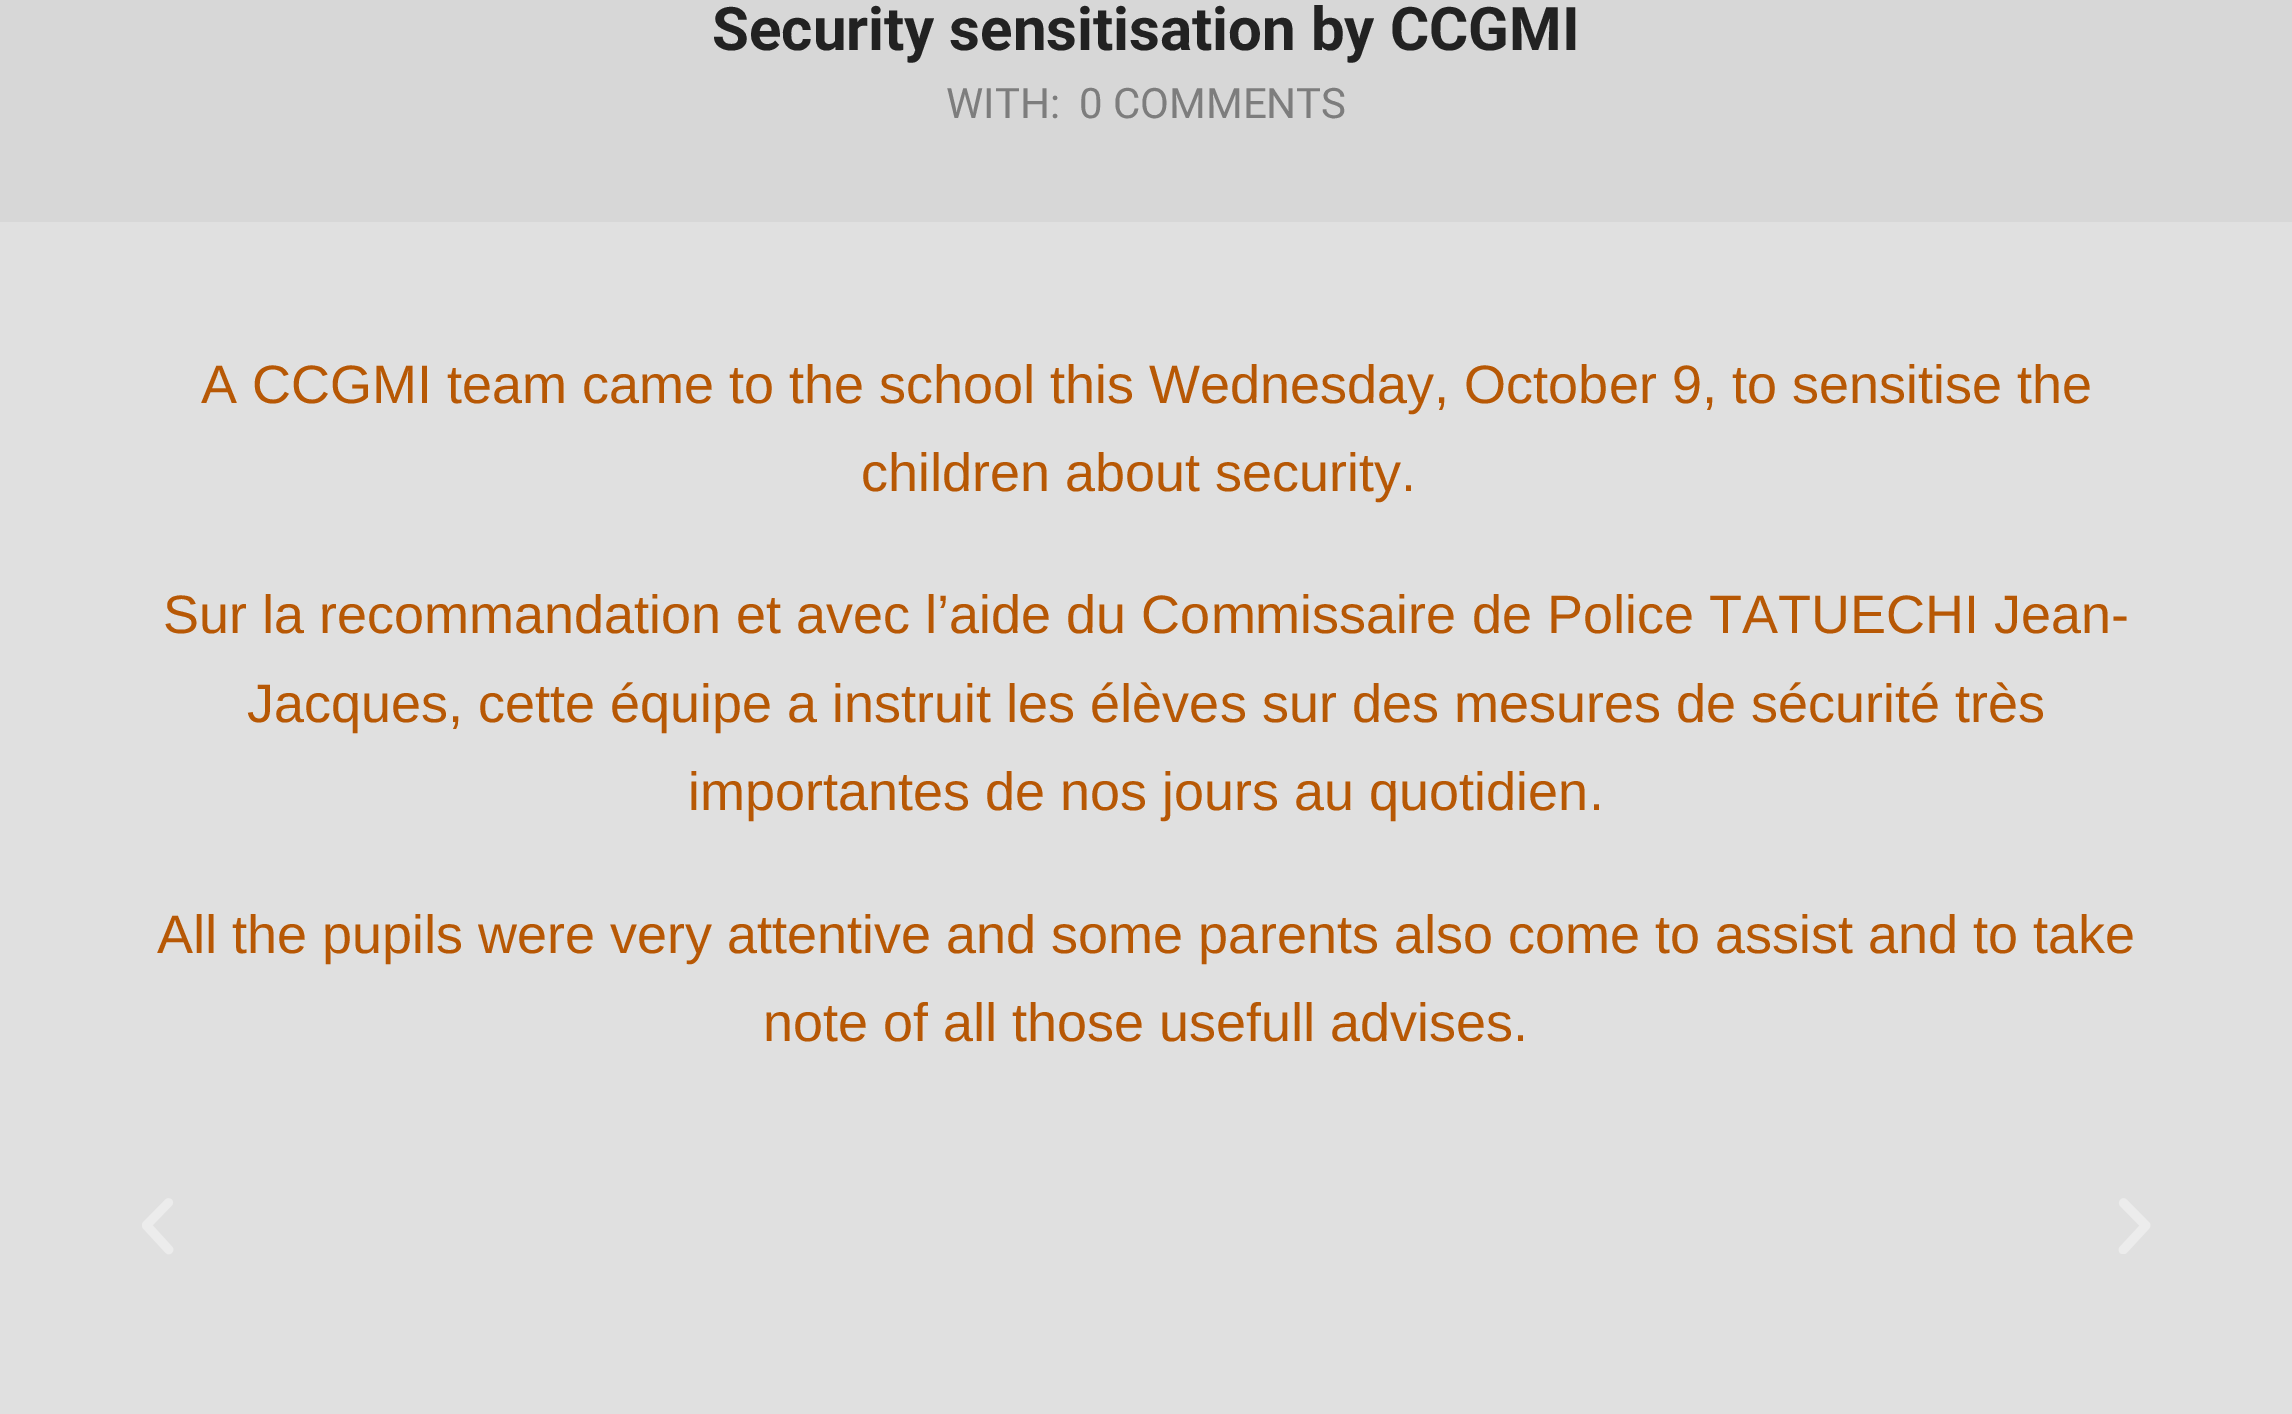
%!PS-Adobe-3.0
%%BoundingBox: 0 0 2292 1414
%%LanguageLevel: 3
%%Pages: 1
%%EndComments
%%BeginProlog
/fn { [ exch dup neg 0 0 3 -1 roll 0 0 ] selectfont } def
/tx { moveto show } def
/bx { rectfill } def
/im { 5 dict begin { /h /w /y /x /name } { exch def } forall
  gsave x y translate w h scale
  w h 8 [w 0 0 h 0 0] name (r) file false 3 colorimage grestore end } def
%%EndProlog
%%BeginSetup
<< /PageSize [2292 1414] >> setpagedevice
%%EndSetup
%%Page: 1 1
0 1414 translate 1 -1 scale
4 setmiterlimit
0.878 setgray
0 0 2292 1414 bx
0.843 setgray
0 0 2292 222 bx
/Roboto-Bold 60 fn
0.133 setgray
(Security sensitisation by CCGMI) 712 50 tx
/Roboto-Regular 42 fn
0.49 setgray
(WITH:) 946 118 tx
(0 COMMENTS) 1079 118 tx
/LiberationSans-Regular 54 fn
0.718 0.345 0.02 setrgbcolor
(A CCGMI team came to the school this Wednesday, October 9, to sensitise the) 201 403 tx
(children about security.) 861 491 tx
(Sur la recommandation et avec l’aide du Commissaire de Police TATUECHI Jean-) 163 633 tx
(Jacques, cette équipe a instruit les élèves sur des mesures de sécurité très) 247 722 tx
(importantes de nos jours au quotidien.) 688 810 tx
(All the pupils were very attentive and some parents also come to assist and to take) 157 953 tx
(note of all those usefull advises.) 763 1041 tx
(image0.raw) 142 1198 32 57 im
(image1.raw) 2118 1198 33 56 im
showpage
%%EOF
